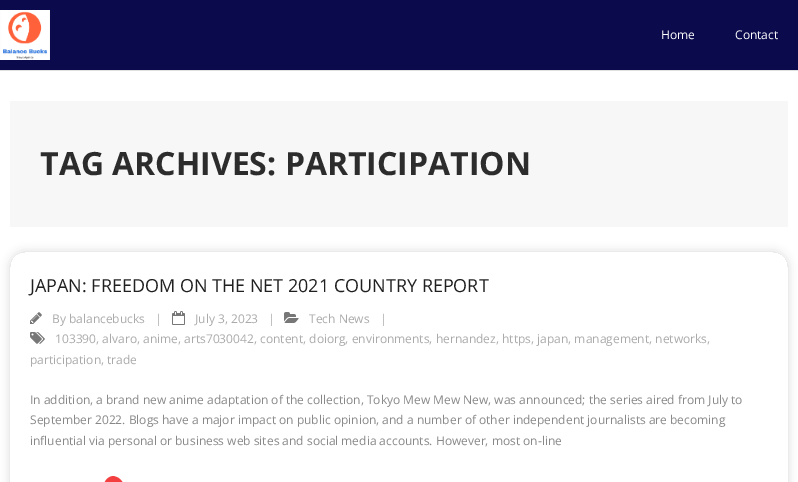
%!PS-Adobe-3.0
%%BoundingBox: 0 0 798 482
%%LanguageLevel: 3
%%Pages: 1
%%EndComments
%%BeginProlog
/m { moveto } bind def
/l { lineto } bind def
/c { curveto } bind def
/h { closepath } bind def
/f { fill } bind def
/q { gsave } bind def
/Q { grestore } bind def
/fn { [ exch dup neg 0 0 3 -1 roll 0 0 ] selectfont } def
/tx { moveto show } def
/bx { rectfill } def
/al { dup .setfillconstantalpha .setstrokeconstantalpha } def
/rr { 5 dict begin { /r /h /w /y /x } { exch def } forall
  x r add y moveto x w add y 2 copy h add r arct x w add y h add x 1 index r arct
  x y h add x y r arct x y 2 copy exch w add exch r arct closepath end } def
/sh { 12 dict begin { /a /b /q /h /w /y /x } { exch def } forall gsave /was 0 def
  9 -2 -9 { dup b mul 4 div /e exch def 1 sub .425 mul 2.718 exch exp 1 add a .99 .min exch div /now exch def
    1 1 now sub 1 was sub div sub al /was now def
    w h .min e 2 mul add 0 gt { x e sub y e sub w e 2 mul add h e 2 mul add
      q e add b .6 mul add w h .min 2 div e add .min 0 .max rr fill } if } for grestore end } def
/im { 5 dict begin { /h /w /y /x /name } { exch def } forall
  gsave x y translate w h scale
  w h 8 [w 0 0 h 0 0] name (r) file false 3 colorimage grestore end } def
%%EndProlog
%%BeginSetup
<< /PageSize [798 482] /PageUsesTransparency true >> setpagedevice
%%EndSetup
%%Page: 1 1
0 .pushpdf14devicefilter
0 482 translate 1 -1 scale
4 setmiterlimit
1 setgray
0 0 798 482 bx
0.043 0.039 0.298 setrgbcolor
0 0 798 70 bx
0.878 setgray
0 70 798 1 bx
(image0.raw) 0 10 50 50 im
/OpenSans-Regular 12 fn
1 setgray
(Home) 661 39 tx
(Contact) 735 39 tx
0.969 setgray
10 101 778 126 bx
/OpenSans-Bold 32 fn
0.173 setgray
(TAG ARCHIVES: PARTICIPATION) 40 175 tx
q
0 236 m 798 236 l 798 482 l 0 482 l h 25 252 m 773 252 l 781.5 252 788 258.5 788 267 c 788 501 l 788 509.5 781.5 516 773 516 c 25 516 l 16.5 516 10 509.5 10 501 c 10 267 l 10 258.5 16.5 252 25 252 c h eoclip newpath
0 setgray
10 252 778 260 15 5 0.15 sh
Q
/OpenSans-Regular 18 fn
0.125 setgray
(JAPAN: FREEDOM ON THE NET 2021 COUNTRY REPORT) 30 292 tx
(image1.raw) 30 312 12 12 im
/OpenSans-Regular 12 fn
0.667 setgray
(By balancebucks) 52 323 tx
(|) 155 323 tx
(image2.raw) 172 311 13 14 im
(July 3, 2023) 195 323 tx
(|) 268 323 tx
(image3.raw) 284 312 15 11 im
(Tech News) 309 323 tx
(|) 380 323 tx
(image4.raw) 30 332 15 12 im
(103390, alvaro, anime, arts7030042, content, doiorg, environments, hernandez, https, japan, management, networks,) 55 343 tx
(participation, trade) 30 364 tx
0.533 setgray
(In addition, a brand new anime adaptation of the collection, Tokyo Mew Mew New, was announced; the series aired from July to) 30 404 tx
(September 2022. Blogs have a major impact on public opinion, and a number of other independent journalists are becoming) 30 424 tx
(influential via personal or business web sites and social media accounts. However, most on-line) 30 445 tx
q
30 476 94 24 12 rr clip newpath
0.953 0.247 0.247 setrgbcolor
114 476 m 112 476 l 118.5 476 124 481.5 124 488 c 124 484 l 124 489.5 119.5 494 114 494 c 108.5 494 104 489.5 104 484 c 104 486 l 104 480.5 108.5 476 114 476 c h f
Q
.poppdf14devicefilter showpage
%%EOF
